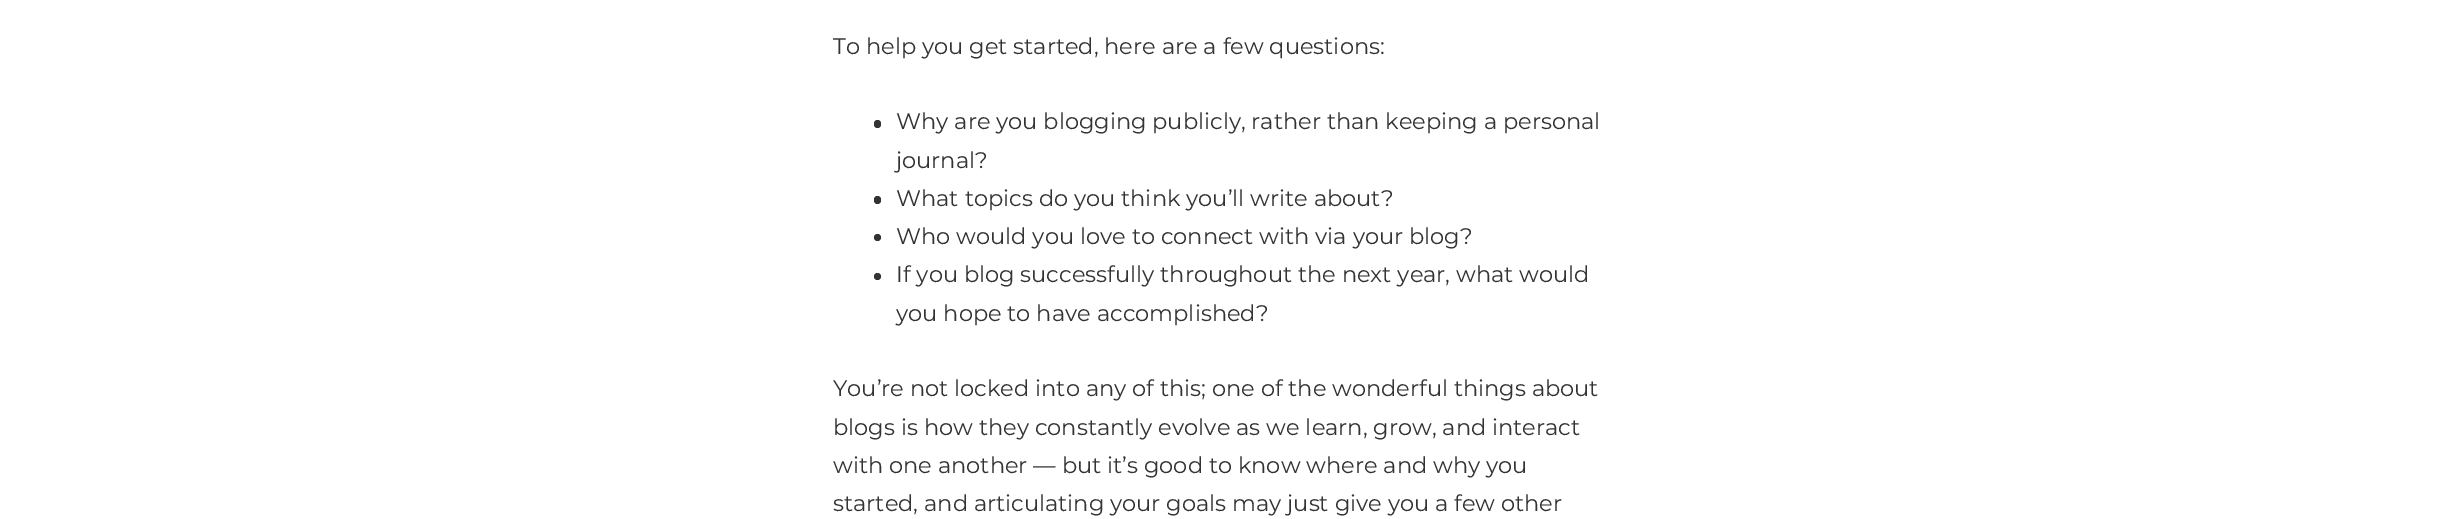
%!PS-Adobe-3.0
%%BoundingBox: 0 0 2441 519
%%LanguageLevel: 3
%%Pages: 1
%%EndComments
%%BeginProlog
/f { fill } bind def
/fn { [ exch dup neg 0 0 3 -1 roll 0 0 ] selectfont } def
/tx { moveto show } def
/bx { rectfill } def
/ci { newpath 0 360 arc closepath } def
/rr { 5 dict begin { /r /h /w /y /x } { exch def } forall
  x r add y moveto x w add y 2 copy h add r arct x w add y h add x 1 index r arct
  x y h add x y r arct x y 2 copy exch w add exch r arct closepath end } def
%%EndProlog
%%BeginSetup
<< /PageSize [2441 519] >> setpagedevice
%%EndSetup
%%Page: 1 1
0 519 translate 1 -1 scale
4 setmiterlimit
1 setgray
0 0 2441 519 bx
/Montserrat-Regular 22.5 fn
0.2 setgray
(To help you get started, here are a few questions:) 833 54 tx
874 120 7 8 3.5 rr f
(Why are you blogging publicly, rather than keeping a personal) 896 129 tx
(journal?) 896 168 tx
874 196 7 8 3.5 rr f
(What topics do you think you’ll write about?) 896 206 tx
877.5 237.5 3.5 ci f
(Who would you love to connect with via your blog?) 896 244 tx
877.5 276.5 3.5 ci f
(If you blog successfully throughout the next year, what would) 896 282 tx
(you hope to have accomplished?) 896 321 tx
(You’re not locked into any of this; one of the wonderful things about) 833 396 tx
(blogs is how they constantly evolve as we learn, grow, and interact) 833 435 tx
(with one another — but it’s good to know where and why you) 833 473 tx
(started, and articulating your goals may just give you a few other) 833 511 tx
showpage
%%EOF
